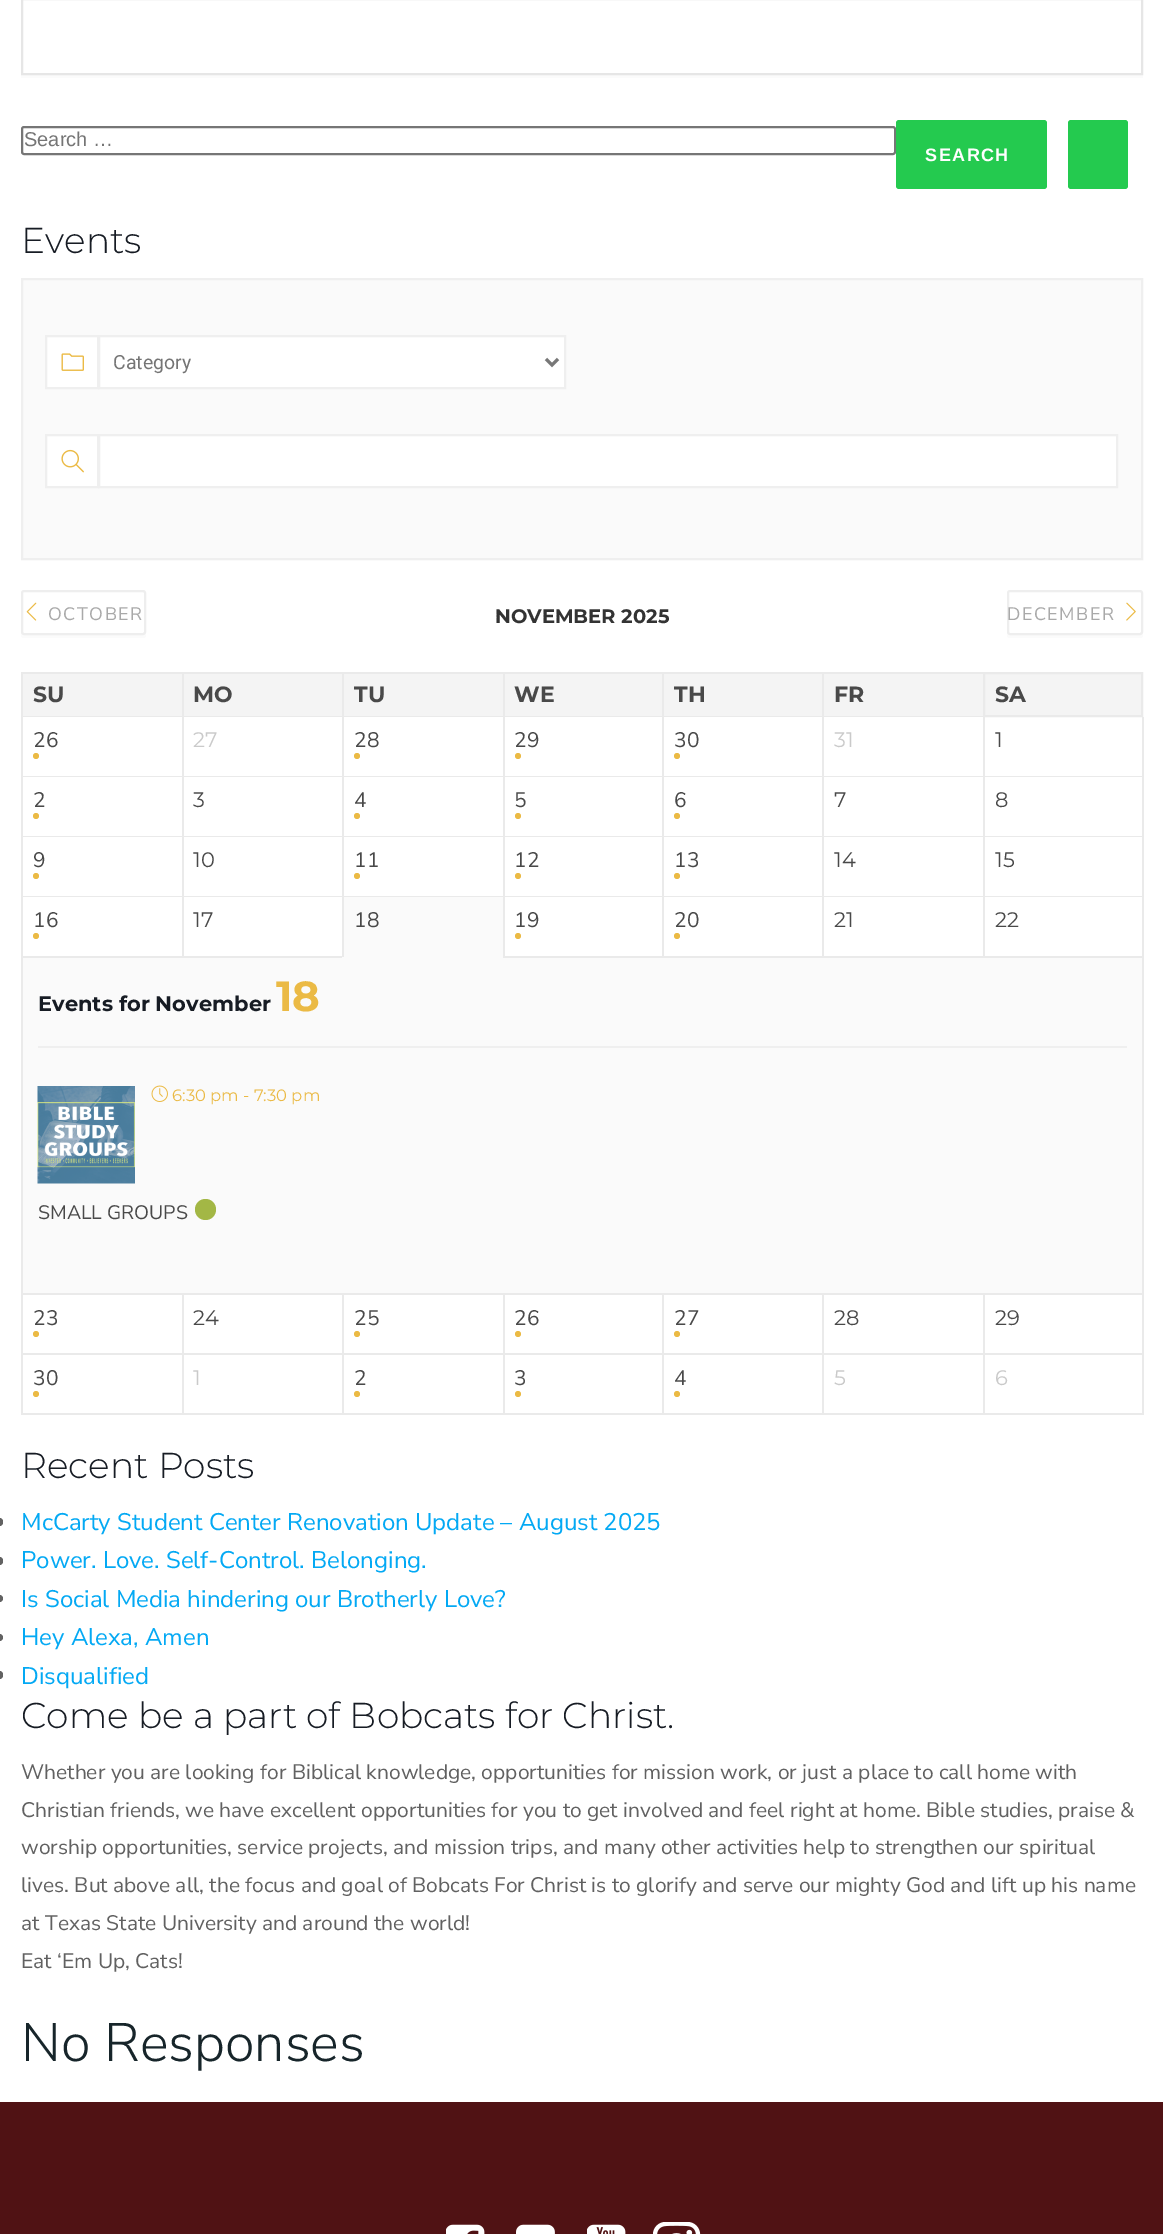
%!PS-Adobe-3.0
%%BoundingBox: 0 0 1163 2234
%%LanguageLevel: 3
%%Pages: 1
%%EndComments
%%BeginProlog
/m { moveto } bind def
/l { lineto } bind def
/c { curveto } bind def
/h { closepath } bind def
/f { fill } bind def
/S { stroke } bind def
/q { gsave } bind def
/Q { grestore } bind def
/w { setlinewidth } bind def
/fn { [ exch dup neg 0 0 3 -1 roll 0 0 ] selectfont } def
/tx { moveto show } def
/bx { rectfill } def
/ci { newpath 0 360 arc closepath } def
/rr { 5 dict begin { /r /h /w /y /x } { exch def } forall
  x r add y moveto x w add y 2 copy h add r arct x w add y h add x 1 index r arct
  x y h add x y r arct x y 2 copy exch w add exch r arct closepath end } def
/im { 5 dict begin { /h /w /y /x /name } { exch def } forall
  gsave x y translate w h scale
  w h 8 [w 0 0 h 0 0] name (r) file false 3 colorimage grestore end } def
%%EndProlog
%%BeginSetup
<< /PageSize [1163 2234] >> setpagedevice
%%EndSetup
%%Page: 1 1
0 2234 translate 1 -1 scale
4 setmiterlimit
1 setgray
0 0 1163 2234 bx
0.984 setgray
21 75 1122 3 bx
0.902 setgray
2 w
22 -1 1120 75 rectstroke
0.463 setgray
22 127 873 27 2 rr S
/LiberationSans-Regular 20 fn
0.459 setgray
(Search …) 24 146 tx
0.141 0.792 0.31 setrgbcolor
896 120 151 69 3 rr f
/LiberationSans-Bold 18 fn
1 setgray
925 161 m 1.5 0 (SEARCH) ashow
0.141 0.792 0.31 setrgbcolor
1068 120 60 69 3 rr f
/Montserrat-Light 36 fn
0.09 0.11 0.141 setrgbcolor
(Events) 21 253 tx
0.98 setgray
22 279 m 1142 279 l 1142 559 l 22 559 l h q f Q
0.937 setgray
S
1 setgray
46 336 m 98 336 l 98 388 l 46 388 l h q f Q
0.937 setgray
S
(image0.raw) 61 353 23 18 im
1 setgray
99 336 m 565 336 l 565 388 l 99 388 l h q f Q
0.937 setgray
S
0.467 setgray
3 w
546 359 m 552 365 l 558 359 l S
/Roboto-Regular 19.5 fn
0.459 setgray
(Category) 113 369 tx
1 setgray
46 435 m 98 435 l 98 487 l 46 487 l h q f Q
0.937 setgray
2 w
S
(image1.raw) 61 449 23 24 im
1 setgray
99 435 m 1117 435 l 1117 487 l 99 487 l h q f Q
0.937 setgray
S
0.984 setgray
21 632 m 21 635 l 21 637 22 638 24 638 c 143 638 l 145 638 146 637 146 635 c 146 596 l 146 594 l 146 632 l 146 633 144 634 142 634 c 24 634 l 22 634 21 633 21 632 c h f
1 setgray
22 591 123 43 2 rr q f Q
0.933 setgray
S
(image2.raw) 26 602 11 19 im
/NunitoSans-Regular 18 fn
0.663 setgray
48 620 m 1.5 0 (OCTOBER) ashow
/Montserrat-Bold 19.5 fn
0.2 setgray
(NOVEMBER 2025) 495 623 tx
0.984 setgray
1007 633 m 1007 635 l 1007 637 1008 638 1010 638 c 1140 638 l 1142 638 1143 637 1143 635 c 1143 632 l 1143 633 1142 634 1140 634 c 1010 634 l h f
1 setgray
1008 591 134 43 2 rr q f Q
0.933 setgray
S
/NunitoSans-Regular 18 fn
0.663 setgray
1007 620 m 1.5 0 (DECEMBER) ashow
(image3.raw) 1126 602 10 19 im
0.957 setgray
23 674 159 42 bx
0.918 setgray
21 672 962 2 bx
21 716 962 1 bx
21 672 2 45 bx
/Montserrat-Bold 22 fn
0.286 setgray
(SU) 33 702 tx
0.957 setgray
184 674 158 42 bx
0.918 setgray
182 672 2 45 bx
0.286 setgray
(MO) 193 702 tx
0.957 setgray
344 674 159 42 bx
0.918 setgray
342 672 2 45 bx
0.286 setgray
(TU) 354 702 tx
0.957 setgray
505 674 157 42 bx
0.918 setgray
503 672 2 45 bx
0.286 setgray
(WE) 514 702 tx
0.957 setgray
664 674 158 42 bx
0.918 setgray
662 672 2 45 bx
0.286 setgray
(TH) 674 702 tx
0.957 setgray
824 674 159 42 bx
0.918 setgray
822 672 2 45 bx
0.286 setgray
(FR) 834 702 tx
0.957 setgray
984 673 m 1142 673 l 1142 716 l 984 716 l h q f Q
0.918 setgray
S
0.286 setgray
(SA) 995 702 tx
0.918 setgray
21 776 962 1 bx
21 717 2 60 bx
/NunitoSans-Regular 21 fn
0.286 setgray
(26) 33 747 tx
0.922 0.729 0.271 setrgbcolor
36 756 3 ci f
0.918 setgray
182 717 2 60 bx
/Montserrat-Regular 21 fn
0.792 setgray
(27) 193 747 tx
0.918 setgray
342 717 2 60 bx
/NunitoSans-Regular 21 fn
0.286 setgray
(28) 354 747 tx
0.922 0.729 0.271 setrgbcolor
357 756 3 ci f
0.918 setgray
503 717 2 60 bx
0.286 setgray
(29) 514 747 tx
0.922 0.729 0.271 setrgbcolor
518 756 3 ci f
0.918 setgray
662 717 2 60 bx
0.286 setgray
(30) 674 747 tx
0.922 0.729 0.271 setrgbcolor
677 756 3 ci f
0.918 setgray
822 717 2 60 bx
/Montserrat-Regular 21 fn
0.792 setgray
(31) 834 747 tx
0.918 setgray
1142 717 2 240 bx
983 776 160 1 bx
983 717 2 60 bx
0.286 setgray
(1) 995 747 tx
0.918 setgray
21 836 1122 1 bx
21 777 2 60 bx
/NunitoSans-Regular 21 fn
0.286 setgray
(2) 33 807 tx
0.922 0.729 0.271 setrgbcolor
36 816 3 ci f
0.918 setgray
182 777 2 60 bx
/Montserrat-Regular 21 fn
0.286 setgray
(3) 193 807 tx
0.918 setgray
342 777 2 60 bx
/NunitoSans-Regular 21 fn
0.286 setgray
(4) 354 807 tx
0.922 0.729 0.271 setrgbcolor
357 816 3 ci f
0.918 setgray
503 777 2 60 bx
0.286 setgray
(5) 514 807 tx
0.922 0.729 0.271 setrgbcolor
518 816 3 ci f
0.918 setgray
662 777 2 60 bx
0.286 setgray
(6) 674 807 tx
0.922 0.729 0.271 setrgbcolor
677 816 3 ci f
0.918 setgray
822 777 2 60 bx
/Montserrat-Regular 21 fn
0.286 setgray
(7) 834 807 tx
0.918 setgray
983 777 2 60 bx
0.286 setgray
(8) 995 807 tx
0.918 setgray
21 896 1122 1 bx
21 837 2 60 bx
/NunitoSans-Regular 21 fn
0.286 setgray
(9) 33 867 tx
0.922 0.729 0.271 setrgbcolor
36 876 3 ci f
0.918 setgray
182 837 2 60 bx
/Montserrat-Regular 21 fn
0.286 setgray
(10) 193 867 tx
0.918 setgray
342 837 2 120 bx
/NunitoSans-Regular 21 fn
0.286 setgray
(11) 354 867 tx
0.922 0.729 0.271 setrgbcolor
357 876 3 ci f
0.918 setgray
503 837 2 60 bx
0.286 setgray
(12) 514 867 tx
0.922 0.729 0.271 setrgbcolor
518 876 3 ci f
0.918 setgray
662 837 2 60 bx
0.286 setgray
(13) 674 867 tx
0.922 0.729 0.271 setrgbcolor
677 876 3 ci f
0.918 setgray
822 837 2 60 bx
/Montserrat-Regular 21 fn
0.286 setgray
(14) 834 867 tx
0.918 setgray
983 837 2 60 bx
0.286 setgray
(15) 995 867 tx
0.98 setgray
23 957 1119 336 bx
0.918 setgray
1142 957 2 458 bx
21 1293 1122 2 bx
21 957 2 338 bx
21 956 321 2 bx
21 897 2 60 bx
/NunitoSans-Regular 21 fn
0.286 setgray
(16) 33 927 tx
0.922 0.729 0.271 setrgbcolor
36 936 3 ci f
0.918 setgray
182 897 2 60 bx
/Montserrat-Regular 21 fn
0.286 setgray
(17) 193 927 tx
0.98 setgray
344 897 159 60 bx
/NunitoSans-Regular 21 fn
0.286 setgray
(18) 354 927 tx
0.918 setgray
503 956 640 2 bx
503 897 2 60 bx
0.286 setgray
(19) 514 927 tx
0.922 0.729 0.271 setrgbcolor
518 936 3 ci f
0.918 setgray
662 897 2 60 bx
0.286 setgray
(20) 674 927 tx
0.922 0.729 0.271 setrgbcolor
677 936 3 ci f
0.918 setgray
822 897 2 60 bx
/Montserrat-Regular 21 fn
0.286 setgray
(21) 834 927 tx
0.918 setgray
983 897 2 60 bx
0.286 setgray
(22) 995 927 tx
/Montserrat-Bold 21 fn
0.09 0.11 0.141 setrgbcolor
(Events for November) 38 1011 tx
/Montserrat-Bold 42 fn
0.922 0.729 0.271 setrgbcolor
(18) 276 1011 tx
0.937 setgray
38 1046 1089 2 bx
(image4.raw) 37 1086 98 98 im
(image5.raw) 151 1085 17 17 im
/Montserrat-Regular 16.5 fn
0.922 0.729 0.271 setrgbcolor
(6:30 pm - 7:30 pm) 172 1101 tx
/NunitoSans-Regular 19.5 fn
0.286 setgray
(SMALL GROUPS) 38 1219 tx
0.639 0.718 0.271 setrgbcolor
205.5 1209.5 10.5 ci f
0.918 setgray
21 1353 1122 2 bx
21 1295 2 60 bx
/NunitoSans-Regular 21 fn
0.286 setgray
(23) 33 1325 tx
0.922 0.729 0.271 setrgbcolor
36 1334 3 ci f
0.918 setgray
182 1295 2 60 bx
/Montserrat-Regular 21 fn
0.286 setgray
(24) 193 1325 tx
0.918 setgray
342 1295 2 60 bx
/NunitoSans-Regular 21 fn
0.286 setgray
(25) 354 1325 tx
0.922 0.729 0.271 setrgbcolor
357 1334 3 ci f
0.918 setgray
503 1295 2 60 bx
0.286 setgray
(26) 514 1325 tx
0.922 0.729 0.271 setrgbcolor
518 1334 3 ci f
0.918 setgray
662 1295 2 60 bx
0.286 setgray
(27) 674 1325 tx
0.922 0.729 0.271 setrgbcolor
677 1334 3 ci f
0.918 setgray
822 1295 2 60 bx
/Montserrat-Regular 21 fn
0.286 setgray
(28) 834 1325 tx
0.918 setgray
983 1295 2 60 bx
0.286 setgray
(29) 995 1325 tx
0.918 setgray
21 1413 1122 2 bx
21 1355 2 60 bx
/NunitoSans-Regular 21 fn
0.286 setgray
(30) 33 1385 tx
0.922 0.729 0.271 setrgbcolor
36 1394 3 ci f
0.918 setgray
182 1355 2 60 bx
/Montserrat-Regular 21 fn
0.792 setgray
(1) 193 1385 tx
0.918 setgray
342 1355 2 60 bx
/NunitoSans-Regular 21 fn
0.286 setgray
(2) 354 1385 tx
0.922 0.729 0.271 setrgbcolor
357 1394 3 ci f
0.918 setgray
503 1355 2 60 bx
0.286 setgray
(3) 514 1385 tx
0.922 0.729 0.271 setrgbcolor
518 1394 3 ci f
0.918 setgray
662 1355 2 60 bx
0.286 setgray
(4) 674 1385 tx
0.922 0.729 0.271 setrgbcolor
677 1394 3 ci f
0.918 setgray
822 1355 2 60 bx
/Montserrat-Regular 21 fn
0.792 setgray
(5) 834 1385 tx
0.918 setgray
983 1355 2 60 bx
0.792 setgray
(6) 995 1385 tx
/Montserrat-Light 36 fn
0.09 0.11 0.141 setrgbcolor
(Recent Posts) 21 1478 tx
0.384 setgray
0 1518 m -0.5 1518 l 1.5 1518 3 1519.5 3 1521.5 c 3 1522.5 l 3 1524.5 1.5 1526 -0.5 1526 c 0 1526 l h f
/NunitoSans-Regular 24 fn
0.012 0.663 0.957 setrgbcolor
(McCarty Student Center Renovation Update – August 2025) 21 1530 tx
0.384 setgray
0 1557 m -0.5 1557 l 1.5 1557 3 1558.5 3 1560.5 c 3 1561.5 l 3 1563.5 1.5 1565 -0.5 1565 c 0 1565 l h f
0.012 0.663 0.957 setrgbcolor
(Power. Love. Self-Control. Belonging.) 21 1568 tx
0.384 setgray
0 1595 m -0.5 1595 l 1.5 1595 3 1596.5 3 1598.5 c 3 1600.5 1.5 1602 -0.5 1602 c 0 1602 l h f
0.012 0.663 0.957 setrgbcolor
(Is Social Media hindering our Brotherly Love?) 21 1607 tx
0.384 setgray
0 1634 m -0.5 1634 l 1.5 1634 3 1635.5 3 1637.5 c 3 1639.5 1.5 1641 -0.5 1641 c 0 1641 l h f
0.012 0.663 0.957 setrgbcolor
(Hey Alexa, Amen) 21 1645 tx
0.384 setgray
0 1671 m -0.5 1671 l 1.5 1671 3 1672.5 3 1674.5 c 3 1675.5 l 3 1677.5 1.5 1679 -0.5 1679 c 0 1679 l h f
0.012 0.663 0.957 setrgbcolor
(Disqualified) 21 1684 tx
/Montserrat-Light 36 fn
0.09 0.11 0.141 setrgbcolor
(Come be a part of Bobcats for Christ.) 21 1728 tx
/NunitoSans-Regular 21 fn
0.38 setgray
(Whether you are looking for Biblical knowledge, opportunities for mission work, or just a place to call home with) 21 1779 tx
(Christian friends, we have excellent opportunities for you to get involved and feel right at home. Bible studies, praise &) 21 1817 tx
(worship opportunities, service projects, and mission trips, and many other activities help to strengthen our spiritual) 21 1854 tx
(lives. But above all, the focus and goal of Bobcats For Christ is to glorify and serve our mighty God and lift up his name) 21 1892 tx
(at Texas State University and around the world!) 21 1930 tx
(Eat ‘Em Up, Cats!) 21 1968 tx
/NunitoSans-Light 54 fn
0.09 0.145 0.165 setrgbcolor
(No Responses) 21 2061 tx
0.314 0.071 0.078 setrgbcolor
0 2102 1163 132 bx
(image6.raw) 446 2224 39 10 im
(image7.raw) 516 2224 39 10 im
(image8.raw) 587 2224 39 10 im
(image9.raw) 653 2222 48 12 im
showpage
%%EOF
